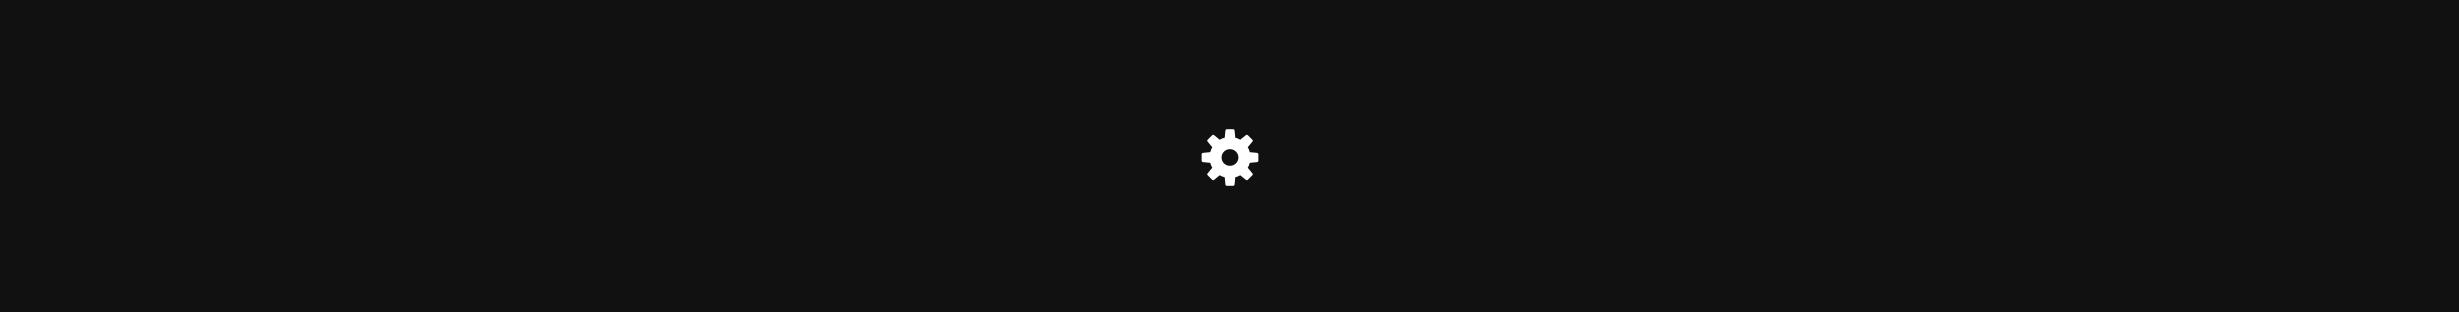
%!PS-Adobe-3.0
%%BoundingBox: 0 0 2459 312
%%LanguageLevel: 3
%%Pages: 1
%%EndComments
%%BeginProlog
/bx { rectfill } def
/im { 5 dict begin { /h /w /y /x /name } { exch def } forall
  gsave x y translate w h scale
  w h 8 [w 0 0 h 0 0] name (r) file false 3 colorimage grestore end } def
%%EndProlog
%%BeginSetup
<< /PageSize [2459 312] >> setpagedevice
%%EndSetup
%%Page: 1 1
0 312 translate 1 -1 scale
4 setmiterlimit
0.067 setgray
0 0 2459 312 bx
(image0.raw) 1201 129 58 57 im
showpage
%%EOF
